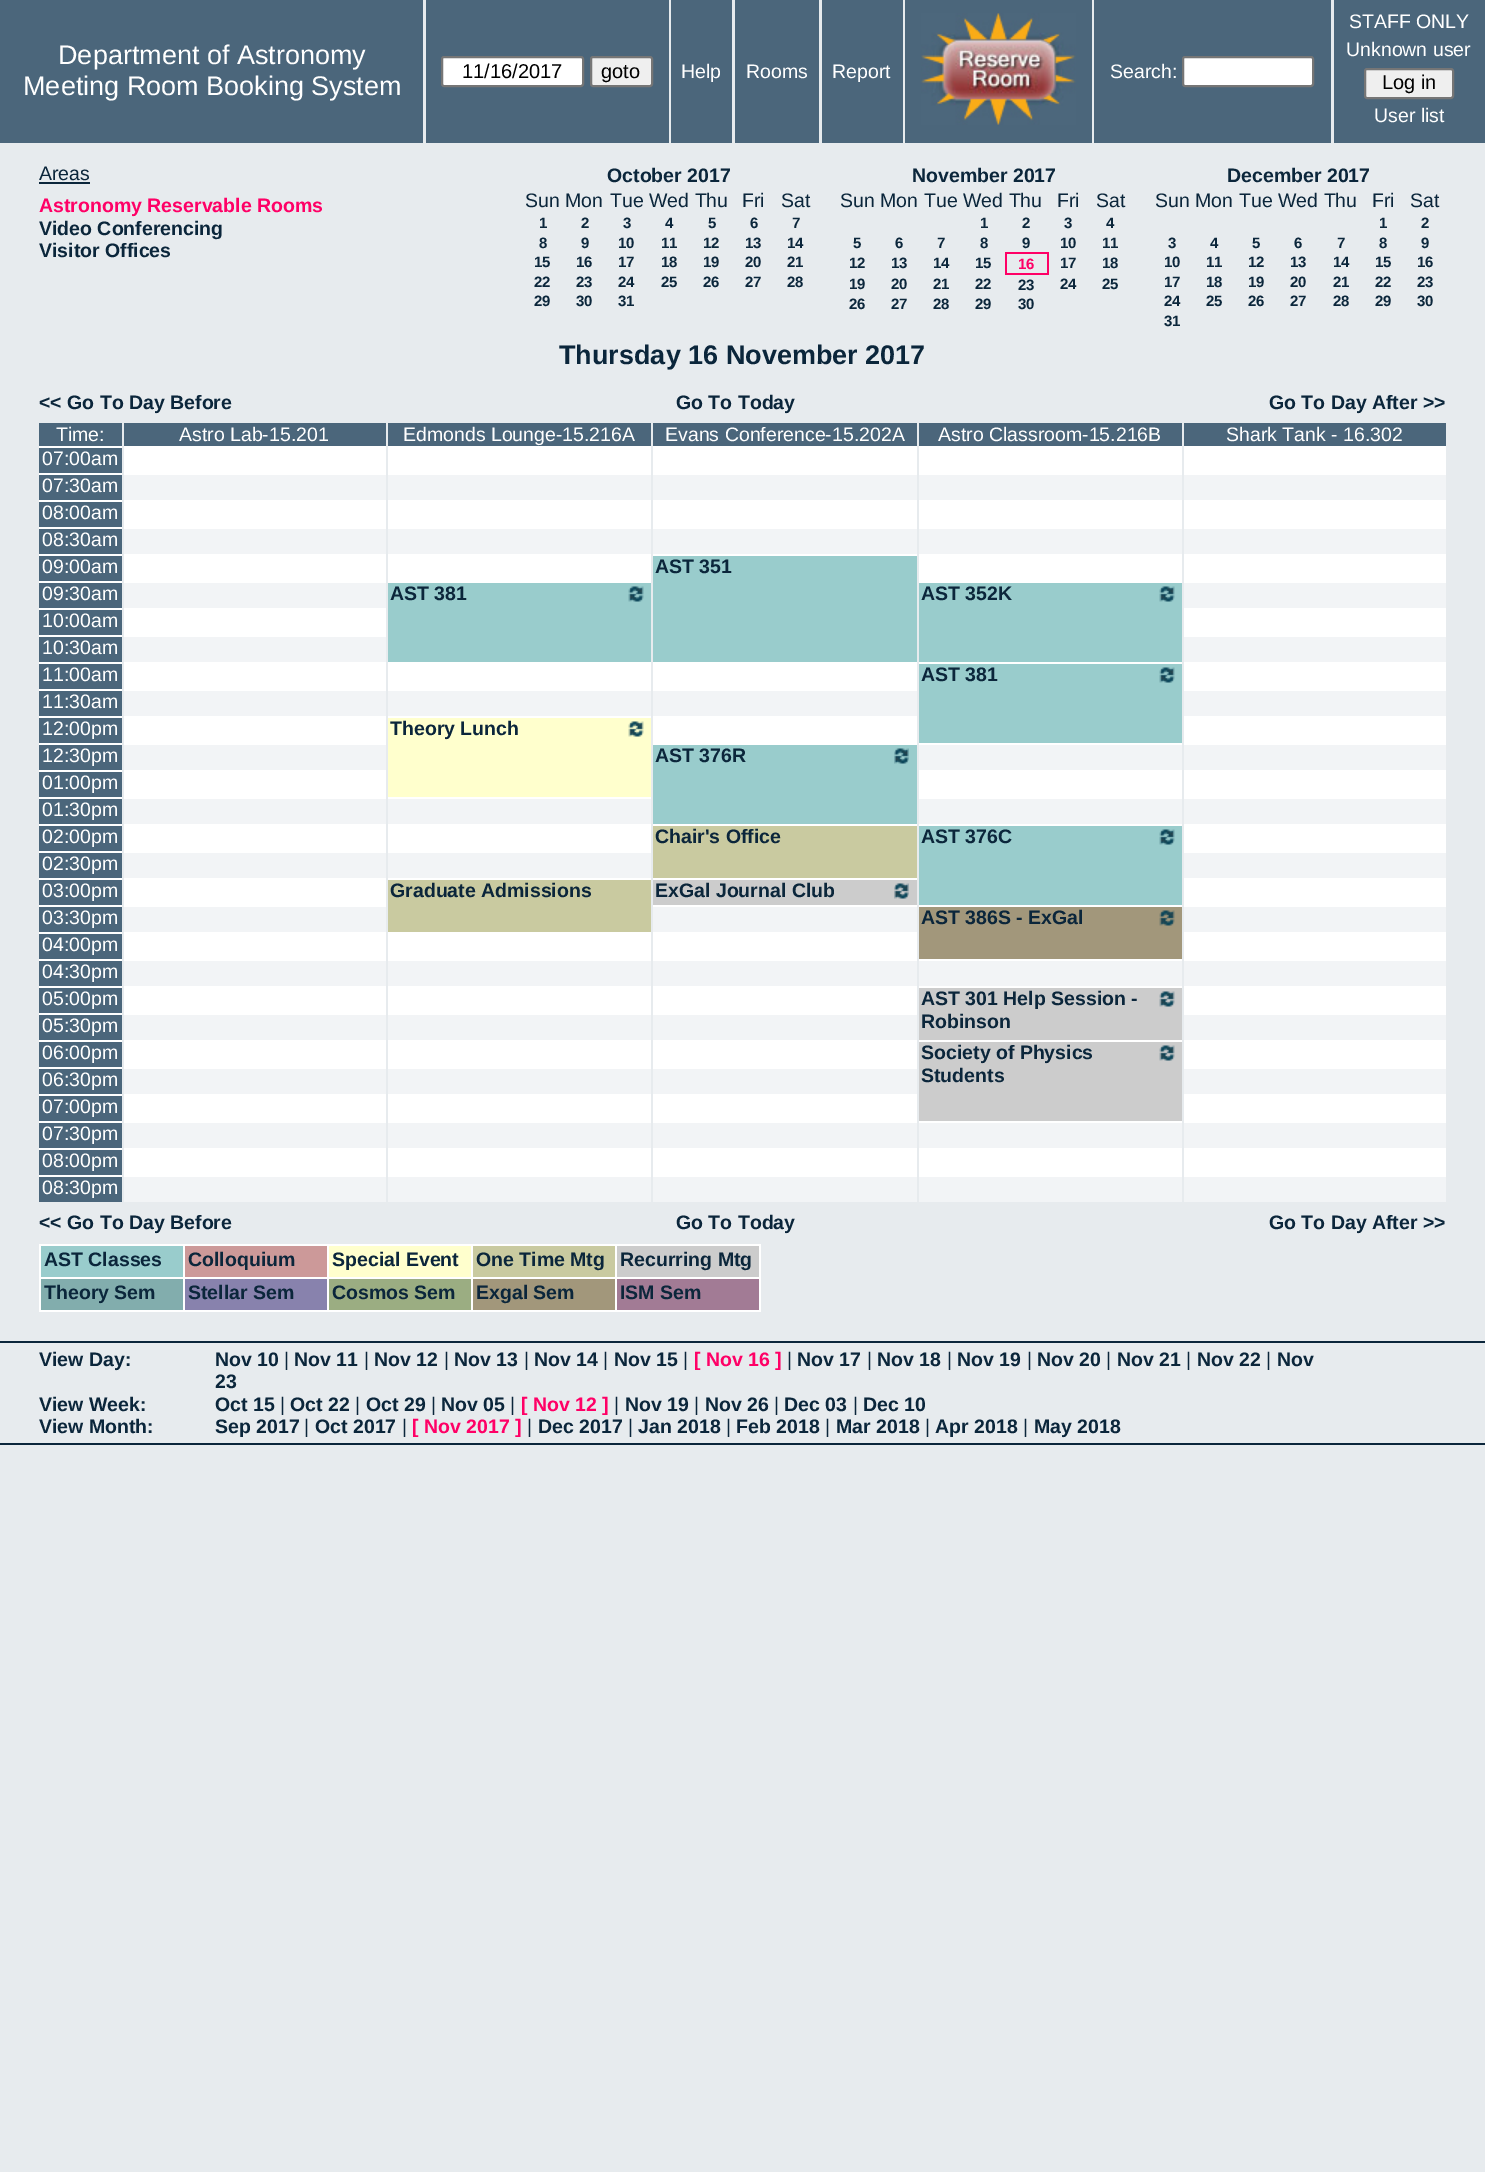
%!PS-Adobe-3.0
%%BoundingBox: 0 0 1485 2172
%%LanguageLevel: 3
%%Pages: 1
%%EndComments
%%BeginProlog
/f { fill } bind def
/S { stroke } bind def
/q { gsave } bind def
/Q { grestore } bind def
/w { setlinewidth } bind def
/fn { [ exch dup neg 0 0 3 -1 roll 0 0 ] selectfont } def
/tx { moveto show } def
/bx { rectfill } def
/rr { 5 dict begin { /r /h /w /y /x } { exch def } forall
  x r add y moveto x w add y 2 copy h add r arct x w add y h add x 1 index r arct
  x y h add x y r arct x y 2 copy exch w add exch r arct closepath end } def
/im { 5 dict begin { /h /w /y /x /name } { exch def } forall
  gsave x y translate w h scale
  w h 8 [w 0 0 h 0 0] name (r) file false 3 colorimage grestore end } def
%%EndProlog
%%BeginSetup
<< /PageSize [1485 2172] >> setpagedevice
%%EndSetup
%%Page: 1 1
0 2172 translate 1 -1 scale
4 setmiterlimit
0.906 0.922 0.933 setrgbcolor
0 0 1485 2172 bx
0.294 0.4 0.482 setrgbcolor
0 0 423 143 bx
/LiberationSans-Regular 27 fn
1 setgray
(Department of Astronomy) 58 64 tx
(Meeting Room Booking System) 23 95 tx
0.294 0.4 0.482 setrgbcolor
426 0 243 143 bx
1 setgray
442 57 141 29 2 rr q f Q
0.463 setgray
2 w
S
/LiberationSans-Regular 20 fn
0 setgray
(11/16/2017) 462 78 tx
0.937 setgray
591 57 61 29 2 rr q f Q
0.463 setgray
S
0 setgray
(goto) 601 78 tx
0.294 0.4 0.482 setrgbcolor
671 0 61 143 bx
/LiberationSans-Regular 19.5 fn
1 setgray
(Help) 681 78 tx
0.294 0.4 0.482 setrgbcolor
735 0 84 143 bx
1 setgray
(Rooms) 746 78 tx
0.294 0.4 0.482 setrgbcolor
822 0 81 143 bx
1 setgray
(Report) 832 78 tx
0.294 0.4 0.482 setrgbcolor
905 0 187 143 bx
(image0.raw) 921 13 155 112 im
1094 0 237 143 bx
1 setgray
(Search:) 1110 78 tx
1183 57 130 29 2 rr q f Q
0.463 setgray
S
0.294 0.4 0.482 setrgbcolor
1334 0 151 143 bx
1 setgray
(STAFF ONLY) 1349 28 tx
(Unknown user) 1346 56 tx
0.937 setgray
1365 69 88 29 2 rr q f Q
0.463 setgray
S
/LiberationSans-Regular 20 fn
0 setgray
(Log in) 1382 89 tx
/LiberationSans-Regular 19.5 fn
1 setgray
(User list) 1374 122 tx
0.043 0.149 0.231 setrgbcolor
(Areas) 39 180 tx
39 182 51 2 bx
/LiberationSans-Bold 19.5 fn
1 0 0.4 setrgbcolor
(Astronomy Reservable Rooms) 39 212 tx
0.043 0.149 0.231 setrgbcolor
(Video Conferencing) 39 235 tx
(Visitor Offices) 39 257 tx
(October 2017) 607 182 tx
/LiberationSans-Regular 19.5 fn
(Sun Mon) 525 207 tx
(Tue Wed Thu) 610 207 tx
(Fri) 742 207 tx
(Sat) 781 207 tx
/LiberationSans-Bold 15 fn
(1) 539 228 tx
(2) 581 228 tx
(3) 623 228 tx
(4) 665 228 tx
(5) 708 228 tx
(6) 750 228 tx
(7) 792 228 tx
(8) 539 248 tx
(9) 581 248 tx
(10) 618 248 tx
(11) 661 248 tx
(12) 703 248 tx
(13) 745 248 tx
(14) 787 248 tx
(15) 534 267 tx
(16) 576 267 tx
(17) 618 267 tx
(18) 661 267 tx
(19) 703 267 tx
(20) 745 267 tx
(21) 787 267 tx
(22) 534 287 tx
(23) 576 287 tx
(24) 618 287 tx
(25) 661 287 tx
(26) 703 287 tx
(27) 745 287 tx
(28) 787 287 tx
(29) 534 306 tx
(30) 576 306 tx
(31) 618 306 tx
/LiberationSans-Bold 19.5 fn
(November 2017) 912 182 tx
/LiberationSans-Regular 19.5 fn
(Sun Mon) 840 207 tx
(Tue Wed Thu) 924 207 tx
(Fri) 1057 207 tx
(Sat) 1096 207 tx
/LiberationSans-Bold 15 fn
(1) 980 228 tx
(2) 1022 228 tx
(3) 1064 228 tx
(4) 1106 228 tx
(5) 853 248 tx
(6) 895 248 tx
(7) 937 248 tx
(8) 980 248 tx
(9) 1022 248 tx
(10) 1060 248 tx
(11) 1102 248 tx
(12) 849 268 tx
(13) 891 268 tx
(14) 933 268 tx
(15) 975 268 tx
1 0 0.4 setrgbcolor
1005 252 44 2 bx
1047 252 2 23 bx
1005 273 44 2 bx
1005 252 2 23 bx
(16) 1018 269 tx
0.043 0.149 0.231 setrgbcolor
(17) 1060 268 tx
(18) 1102 268 tx
(19) 849 289 tx
(20) 891 289 tx
(21) 933 289 tx
(22) 975 289 tx
(23) 1018 290 tx
(24) 1060 289 tx
(25) 1102 289 tx
(26) 849 309 tx
(27) 891 309 tx
(28) 933 309 tx
(29) 975 309 tx
(30) 1018 309 tx
/LiberationSans-Bold 19.5 fn
(December 2017) 1227 182 tx
/LiberationSans-Regular 19.5 fn
(Sun Mon) 1155 207 tx
(Tue Wed Thu) 1239 207 tx
(Fri) 1372 207 tx
(Sat) 1410 207 tx
/LiberationSans-Bold 15 fn
(1) 1379 228 tx
(2) 1421 228 tx
(3) 1168 248 tx
(4) 1210 248 tx
(5) 1252 248 tx
(6) 1294 248 tx
(7) 1337 248 tx
(8) 1379 248 tx
(9) 1421 248 tx
(10) 1164 267 tx
(11) 1206 267 tx
(12) 1248 267 tx
(13) 1290 267 tx
(14) 1333 267 tx
(15) 1375 267 tx
(16) 1417 267 tx
(17) 1164 287 tx
(18) 1206 287 tx
(19) 1248 287 tx
(20) 1290 287 tx
(21) 1333 287 tx
(22) 1375 287 tx
(23) 1417 287 tx
(24) 1164 306 tx
(25) 1206 306 tx
(26) 1248 306 tx
(27) 1290 306 tx
(28) 1333 306 tx
(29) 1375 306 tx
(30) 1417 306 tx
(31) 1164 326 tx
/LiberationSans-Bold 27 fn
(Thursday 16 November 2017) 559 364 tx
/LiberationSans-Bold 19.5 fn
(<< Go To Day Before) 39 409 tx
(Go To Today) 676 409 tx
(Go To Day After >>) 1269 409 tx
0.294 0.4 0.482 setrgbcolor
39 423 83 23 bx
/LiberationSans-Regular 19.5 fn
1 setgray
(Time:) 56 441 tx
0.294 0.4 0.482 setrgbcolor
124 423 262 23 bx
1 setgray
(Astro Lab-15.201) 179 441 tx
0.294 0.4 0.482 setrgbcolor
388 423 263 23 bx
1 setgray
(Edmonds Lounge-15.216A) 403 441 tx
0.294 0.4 0.482 setrgbcolor
653 423 264 23 bx
1 setgray
(Evans Conference-15.202A) 665 441 tx
0.294 0.4 0.482 setrgbcolor
919 423 263 23 bx
1 setgray
(Astro Classroom-15.216B) 938 441 tx
0.294 0.4 0.482 setrgbcolor
1184 423 262 23 bx
1 setgray
(Shark Tank - 16.302) 1226 441 tx
0.294 0.4 0.482 setrgbcolor
39 448 83 25 bx
1 setgray
39 446 83 2 bx
(07:00am) 42 465 tx
124 446 262 27 bx
388 446 263 27 bx
653 446 264 27 bx
919 446 263 27 bx
1184 446 262 27 bx
0.294 0.4 0.482 setrgbcolor
39 475 83 25 bx
1 setgray
39 473 1407 2 bx
(07:30am) 42 492 tx
0.949 0.957 0.965 setrgbcolor
124 475 262 25 bx
0.906 0.922 0.933 setrgbcolor
122 473 2 2 bx
0.949 0.957 0.965 setrgbcolor
388 475 263 25 bx
0.906 0.922 0.933 setrgbcolor
386 473 2 2 bx
0.949 0.957 0.965 setrgbcolor
653 475 264 25 bx
0.906 0.922 0.933 setrgbcolor
651 473 2 2 bx
0.949 0.957 0.965 setrgbcolor
919 475 263 25 bx
0.906 0.922 0.933 setrgbcolor
917 473 2 2 bx
0.949 0.957 0.965 setrgbcolor
1184 475 262 25 bx
0.906 0.922 0.933 setrgbcolor
1182 473 2 2 bx
0.294 0.4 0.482 setrgbcolor
39 502 83 25 bx
1 setgray
39 500 83 2 bx
(08:00am) 42 519 tx
124 500 262 27 bx
388 500 263 27 bx
653 500 264 27 bx
919 500 263 27 bx
1184 500 262 27 bx
0.294 0.4 0.482 setrgbcolor
39 529 83 25 bx
1 setgray
39 527 1407 2 bx
(08:30am) 42 546 tx
0.949 0.957 0.965 setrgbcolor
124 529 262 25 bx
0.906 0.922 0.933 setrgbcolor
122 527 2 2 bx
0.949 0.957 0.965 setrgbcolor
388 529 263 25 bx
0.906 0.922 0.933 setrgbcolor
386 527 2 2 bx
0.949 0.957 0.965 setrgbcolor
653 529 264 25 bx
0.906 0.922 0.933 setrgbcolor
651 527 2 2 bx
0.949 0.957 0.965 setrgbcolor
919 529 263 25 bx
0.906 0.922 0.933 setrgbcolor
917 527 2 2 bx
0.949 0.957 0.965 setrgbcolor
1184 529 262 25 bx
0.906 0.922 0.933 setrgbcolor
1182 527 2 2 bx
0.294 0.4 0.482 setrgbcolor
39 556 83 25 bx
1 setgray
39 554 83 2 bx
(09:00am) 42 573 tx
124 554 262 27 bx
388 554 263 27 bx
0.6 0.8 0.8 setrgbcolor
653 556 264 106 bx
1 setgray
651 554 266 2 bx
0.906 0.922 0.933 setrgbcolor
651 554 2 2 bx
/LiberationSans-Bold 19.5 fn
0.043 0.149 0.231 setrgbcolor
(AST 351) 655 573 tx
1 setgray
919 554 263 27 bx
1184 554 262 27 bx
0.294 0.4 0.482 setrgbcolor
39 583 83 25 bx
1 setgray
39 581 612 2 bx
/LiberationSans-Regular 19.5 fn
(09:30am) 42 600 tx
0.949 0.957 0.965 setrgbcolor
124 583 262 25 bx
0.906 0.922 0.933 setrgbcolor
122 581 2 2 bx
0.6 0.8 0.8 setrgbcolor
388 583 263 79 bx
0.906 0.922 0.933 setrgbcolor
386 581 2 2 bx
/LiberationSans-Bold 19.5 fn
0.043 0.149 0.231 setrgbcolor
(AST 381) 390 600 tx
(image1.raw) 628 586 16 16 im
0.6 0.8 0.8 setrgbcolor
919 583 263 79 bx
1 setgray
917 581 529 2 bx
0.906 0.922 0.933 setrgbcolor
917 581 2 2 bx
0.043 0.149 0.231 setrgbcolor
(AST 352K) 921 600 tx
(image1.raw) 1159 586 16 16 im
0.949 0.957 0.965 setrgbcolor
1184 583 262 25 bx
0.906 0.922 0.933 setrgbcolor
1182 581 2 2 bx
0.294 0.4 0.482 setrgbcolor
39 610 83 25 bx
1 setgray
39 608 83 2 bx
/LiberationSans-Regular 19.5 fn
(10:00am) 42 627 tx
124 608 262 27 bx
1184 608 262 27 bx
0.294 0.4 0.482 setrgbcolor
39 637 83 25 bx
1 setgray
39 635 347 2 bx
(10:30am) 42 654 tx
0.949 0.957 0.965 setrgbcolor
124 637 262 25 bx
0.906 0.922 0.933 setrgbcolor
122 635 2 2 bx
0.949 0.957 0.965 setrgbcolor
1184 637 262 25 bx
1 setgray
1182 635 264 2 bx
0.906 0.922 0.933 setrgbcolor
1182 635 2 2 bx
0.294 0.4 0.482 setrgbcolor
39 664 83 25 bx
1 setgray
39 662 83 2 bx
(11:00am) 42 681 tx
124 662 262 27 bx
388 662 263 27 bx
653 662 264 27 bx
0.6 0.8 0.8 setrgbcolor
919 664 263 79 bx
1 setgray
917 662 265 2 bx
0.906 0.922 0.933 setrgbcolor
917 662 2 2 bx
/LiberationSans-Bold 19.5 fn
0.043 0.149 0.231 setrgbcolor
(AST 381) 921 681 tx
(image1.raw) 1159 667 16 16 im
1 setgray
1184 662 262 27 bx
0.294 0.4 0.482 setrgbcolor
39 691 83 25 bx
1 setgray
39 689 878 2 bx
/LiberationSans-Regular 19.5 fn
(11:30am) 42 708 tx
0.949 0.957 0.965 setrgbcolor
124 691 262 25 bx
0.906 0.922 0.933 setrgbcolor
122 689 2 2 bx
0.949 0.957 0.965 setrgbcolor
388 691 263 25 bx
0.906 0.922 0.933 setrgbcolor
386 689 2 2 bx
0.949 0.957 0.965 setrgbcolor
653 691 264 25 bx
0.906 0.922 0.933 setrgbcolor
651 689 2 2 bx
0.949 0.957 0.965 setrgbcolor
1184 691 262 25 bx
1 setgray
1182 689 264 2 bx
0.906 0.922 0.933 setrgbcolor
1182 689 2 2 bx
0.294 0.4 0.482 setrgbcolor
39 718 83 25 bx
1 setgray
39 716 83 2 bx
(12:00pm) 42 735 tx
124 716 262 27 bx
1 1 0.804 setrgbcolor
388 718 263 79 bx
1 setgray
386 716 265 2 bx
0.906 0.922 0.933 setrgbcolor
386 716 2 2 bx
/LiberationSans-Bold 19.5 fn
0.043 0.149 0.231 setrgbcolor
(Theory Lunch) 390 735 tx
(image2.raw) 628 721 16 16 im
1 setgray
653 716 264 27 bx
1184 716 262 27 bx
0.294 0.4 0.482 setrgbcolor
39 745 83 25 bx
1 setgray
39 743 347 2 bx
/LiberationSans-Regular 19.5 fn
(12:30pm) 42 762 tx
0.949 0.957 0.965 setrgbcolor
124 745 262 25 bx
0.906 0.922 0.933 setrgbcolor
122 743 2 2 bx
0.6 0.8 0.8 setrgbcolor
653 745 264 79 bx
1 setgray
651 743 795 2 bx
0.906 0.922 0.933 setrgbcolor
651 743 2 2 bx
/LiberationSans-Bold 19.5 fn
0.043 0.149 0.231 setrgbcolor
(AST 376R) 655 762 tx
(image3.raw) 894 748 15 16 im
0.949 0.957 0.965 setrgbcolor
919 745 263 25 bx
0.906 0.922 0.933 setrgbcolor
917 743 2 2 bx
0.949 0.957 0.965 setrgbcolor
1184 745 262 25 bx
0.906 0.922 0.933 setrgbcolor
1182 743 2 2 bx
0.294 0.4 0.482 setrgbcolor
39 772 83 25 bx
1 setgray
39 770 83 2 bx
/LiberationSans-Regular 19.5 fn
(01:00pm) 42 789 tx
124 770 262 27 bx
919 770 263 27 bx
1184 770 262 27 bx
0.949 0.957 0.965 setrgbcolor
124 799 262 25 bx
1 setgray
39 797 612 2 bx
0.906 0.922 0.933 setrgbcolor
122 797 2 2 bx
0.949 0.957 0.965 setrgbcolor
388 799 263 25 bx
0.906 0.922 0.933 setrgbcolor
386 797 2 2 bx
0.949 0.957 0.965 setrgbcolor
919 799 263 25 bx
1 setgray
917 797 529 2 bx
0.906 0.922 0.933 setrgbcolor
917 797 2 2 bx
0.294 0.4 0.482 setrgbcolor
39 799 83 25 bx
1 setgray
(01:30pm) 42 816 tx
0.949 0.957 0.965 setrgbcolor
1184 799 262 25 bx
0.906 0.922 0.933 setrgbcolor
1182 797 2 2 bx
0.294 0.4 0.482 setrgbcolor
39 826 83 25 bx
1 setgray
39 824 83 2 bx
(02:00pm) 42 843 tx
124 824 262 27 bx
388 824 263 27 bx
0.788 0.792 0.627 setrgbcolor
653 826 264 52 bx
1 setgray
651 824 531 2 bx
0.906 0.922 0.933 setrgbcolor
651 824 2 2 bx
/LiberationSans-Bold 19.5 fn
0.043 0.149 0.231 setrgbcolor
(Chair's Office) 655 843 tx
0.6 0.8 0.8 setrgbcolor
919 826 263 79 bx
0.906 0.922 0.933 setrgbcolor
917 824 2 2 bx
0.043 0.149 0.231 setrgbcolor
(AST 376C) 921 843 tx
(image1.raw) 1159 829 16 16 im
1 setgray
1184 824 262 27 bx
0.294 0.4 0.482 setrgbcolor
39 853 83 25 bx
1 setgray
39 851 612 2 bx
/LiberationSans-Regular 19.5 fn
(02:30pm) 42 870 tx
0.949 0.957 0.965 setrgbcolor
124 853 262 25 bx
0.906 0.922 0.933 setrgbcolor
122 851 2 2 bx
0.949 0.957 0.965 setrgbcolor
388 853 263 25 bx
0.906 0.922 0.933 setrgbcolor
386 851 2 2 bx
0.949 0.957 0.965 setrgbcolor
1184 853 262 25 bx
1 setgray
1182 851 264 2 bx
0.906 0.922 0.933 setrgbcolor
1182 851 2 2 bx
0.294 0.4 0.482 setrgbcolor
39 880 83 25 bx
1 setgray
39 878 83 2 bx
(03:00pm) 42 897 tx
124 878 262 27 bx
0.788 0.792 0.627 setrgbcolor
388 880 263 52 bx
1 setgray
386 878 531 2 bx
0.906 0.922 0.933 setrgbcolor
386 878 2 2 bx
/LiberationSans-Bold 19.5 fn
0.043 0.149 0.231 setrgbcolor
(Graduate Admissions) 390 897 tx
0.8 setgray
653 880 264 25 bx
0.906 0.922 0.933 setrgbcolor
651 878 2 2 bx
0.043 0.149 0.231 setrgbcolor
(ExGal Journal Club) 655 897 tx
(image4.raw) 894 883 15 16 im
1 setgray
1184 878 262 27 bx
0.949 0.957 0.965 setrgbcolor
124 907 262 25 bx
1 setgray
39 905 347 2 bx
0.906 0.922 0.933 setrgbcolor
122 905 2 2 bx
0.949 0.957 0.965 setrgbcolor
653 907 264 25 bx
1 setgray
651 905 795 2 bx
0.906 0.922 0.933 setrgbcolor
651 905 2 2 bx
0.294 0.4 0.482 setrgbcolor
39 907 83 25 bx
/LiberationSans-Regular 19.5 fn
1 setgray
(03:30pm) 42 924 tx
0.635 0.592 0.482 setrgbcolor
919 907 263 52 bx
0.906 0.922 0.933 setrgbcolor
917 905 2 2 bx
/LiberationSans-Bold 19.5 fn
0.043 0.149 0.231 setrgbcolor
(AST 386S - ExGal) 921 924 tx
(image5.raw) 1159 910 16 16 im
0.949 0.957 0.965 setrgbcolor
1184 907 262 25 bx
0.906 0.922 0.933 setrgbcolor
1182 905 2 2 bx
0.294 0.4 0.482 setrgbcolor
39 934 83 25 bx
1 setgray
39 932 83 2 bx
/LiberationSans-Regular 19.5 fn
(04:00pm) 42 951 tx
124 932 262 27 bx
388 932 263 27 bx
653 932 264 27 bx
1184 932 262 27 bx
0.294 0.4 0.482 setrgbcolor
39 961 83 25 bx
1 setgray
39 959 1407 2 bx
(04:30pm) 42 978 tx
0.949 0.957 0.965 setrgbcolor
124 961 262 25 bx
0.906 0.922 0.933 setrgbcolor
122 959 2 2 bx
0.949 0.957 0.965 setrgbcolor
388 961 263 25 bx
0.906 0.922 0.933 setrgbcolor
386 959 2 2 bx
0.949 0.957 0.965 setrgbcolor
653 961 264 25 bx
0.906 0.922 0.933 setrgbcolor
651 959 2 2 bx
0.949 0.957 0.965 setrgbcolor
919 961 263 25 bx
0.906 0.922 0.933 setrgbcolor
917 959 2 2 bx
0.949 0.957 0.965 setrgbcolor
1184 961 262 25 bx
0.906 0.922 0.933 setrgbcolor
1182 959 2 2 bx
0.294 0.4 0.482 setrgbcolor
39 988 83 25 bx
1 setgray
39 986 83 2 bx
(05:00pm) 42 1005 tx
124 986 262 27 bx
388 986 263 27 bx
653 986 264 27 bx
0.8 setgray
919 988 263 52 bx
1 setgray
917 986 265 2 bx
0.906 0.922 0.933 setrgbcolor
917 986 2 2 bx
/LiberationSans-Bold 19.5 fn
0.043 0.149 0.231 setrgbcolor
(AST 301 Help Session -) 921 1005 tx
(image6.raw) 1159 991 16 16 im
(Robinson) 921 1028 tx
1 setgray
1184 986 262 27 bx
0.294 0.4 0.482 setrgbcolor
39 1015 83 25 bx
1 setgray
39 1013 878 2 bx
/LiberationSans-Regular 19.5 fn
(05:30pm) 42 1032 tx
0.949 0.957 0.965 setrgbcolor
124 1015 262 25 bx
0.906 0.922 0.933 setrgbcolor
122 1013 2 2 bx
0.949 0.957 0.965 setrgbcolor
388 1015 263 25 bx
0.906 0.922 0.933 setrgbcolor
386 1013 2 2 bx
0.949 0.957 0.965 setrgbcolor
653 1015 264 25 bx
0.906 0.922 0.933 setrgbcolor
651 1013 2 2 bx
0.949 0.957 0.965 setrgbcolor
1184 1015 262 25 bx
1 setgray
1182 1013 264 2 bx
0.906 0.922 0.933 setrgbcolor
1182 1013 2 2 bx
0.294 0.4 0.482 setrgbcolor
39 1042 83 25 bx
1 setgray
39 1040 83 2 bx
(06:00pm) 42 1059 tx
124 1040 262 27 bx
388 1040 263 27 bx
653 1040 264 27 bx
0.8 setgray
919 1042 263 79 bx
1 setgray
917 1040 265 2 bx
0.906 0.922 0.933 setrgbcolor
917 1040 2 2 bx
/LiberationSans-Bold 19.5 fn
0.043 0.149 0.231 setrgbcolor
(Society of Physics) 921 1059 tx
(image6.raw) 1159 1045 16 16 im
(Students) 921 1082 tx
1 setgray
1184 1040 262 27 bx
0.294 0.4 0.482 setrgbcolor
39 1069 83 25 bx
1 setgray
39 1067 878 2 bx
/LiberationSans-Regular 19.5 fn
(06:30pm) 42 1086 tx
0.949 0.957 0.965 setrgbcolor
124 1069 262 25 bx
0.906 0.922 0.933 setrgbcolor
122 1067 2 2 bx
0.949 0.957 0.965 setrgbcolor
388 1069 263 25 bx
0.906 0.922 0.933 setrgbcolor
386 1067 2 2 bx
0.949 0.957 0.965 setrgbcolor
653 1069 264 25 bx
0.906 0.922 0.933 setrgbcolor
651 1067 2 2 bx
0.949 0.957 0.965 setrgbcolor
1184 1069 262 25 bx
1 setgray
1182 1067 264 2 bx
0.906 0.922 0.933 setrgbcolor
1182 1067 2 2 bx
0.294 0.4 0.482 setrgbcolor
39 1096 83 25 bx
1 setgray
39 1094 83 2 bx
(07:00pm) 42 1113 tx
124 1094 262 27 bx
388 1094 263 27 bx
653 1094 264 27 bx
1184 1094 262 27 bx
0.294 0.4 0.482 setrgbcolor
39 1123 83 25 bx
1 setgray
39 1121 1407 2 bx
(07:30pm) 42 1140 tx
0.949 0.957 0.965 setrgbcolor
124 1123 262 25 bx
0.906 0.922 0.933 setrgbcolor
122 1121 2 2 bx
0.949 0.957 0.965 setrgbcolor
388 1123 263 25 bx
0.906 0.922 0.933 setrgbcolor
386 1121 2 2 bx
0.949 0.957 0.965 setrgbcolor
653 1123 264 25 bx
0.906 0.922 0.933 setrgbcolor
651 1121 2 2 bx
0.949 0.957 0.965 setrgbcolor
919 1123 263 25 bx
0.906 0.922 0.933 setrgbcolor
917 1121 2 2 bx
0.949 0.957 0.965 setrgbcolor
1184 1123 262 25 bx
0.906 0.922 0.933 setrgbcolor
1182 1121 2 2 bx
0.294 0.4 0.482 setrgbcolor
39 1150 83 25 bx
1 setgray
39 1148 83 2 bx
(08:00pm) 42 1167 tx
124 1148 262 27 bx
388 1148 263 27 bx
653 1148 264 27 bx
919 1148 263 27 bx
1184 1148 262 27 bx
0.294 0.4 0.482 setrgbcolor
39 1177 83 25 bx
1 setgray
39 1175 1407 2 bx
(08:30pm) 42 1194 tx
0.949 0.957 0.965 setrgbcolor
124 1177 262 25 bx
0.906 0.922 0.933 setrgbcolor
122 1175 2 2 bx
0.949 0.957 0.965 setrgbcolor
388 1177 263 25 bx
0.906 0.922 0.933 setrgbcolor
386 1175 2 2 bx
0.949 0.957 0.965 setrgbcolor
653 1177 264 25 bx
0.906 0.922 0.933 setrgbcolor
651 1175 2 2 bx
0.949 0.957 0.965 setrgbcolor
919 1177 263 25 bx
0.906 0.922 0.933 setrgbcolor
917 1175 2 2 bx
0.949 0.957 0.965 setrgbcolor
1184 1177 262 25 bx
0.906 0.922 0.933 setrgbcolor
1182 1175 2 2 bx
/LiberationSans-Bold 19.5 fn
0.043 0.149 0.231 setrgbcolor
(<< Go To Day Before) 39 1229 tx
(Go To Today) 676 1229 tx
(Go To Day After >>) 1269 1229 tx
0.6 0.8 0.8 setrgbcolor
41 1246 142 31 bx
1 setgray
615 1244 146 2 bx
615 1277 146 2 bx
759 1277 2 34 bx
615 1310 146 2 bx
615 1277 2 34 bx
471 1277 146 2 bx
615 1244 2 34 bx
471 1244 146 2 bx
471 1310 146 2 bx
471 1277 2 34 bx
327 1277 146 2 bx
471 1244 2 34 bx
327 1244 146 2 bx
327 1310 146 2 bx
327 1277 2 34 bx
183 1277 146 2 bx
327 1244 2 34 bx
183 1244 146 2 bx
183 1310 146 2 bx
183 1277 2 34 bx
39 1277 146 2 bx
183 1244 2 34 bx
39 1244 146 2 bx
39 1310 146 2 bx
39 1277 2 34 bx
39 1244 2 34 bx
0.043 0.149 0.231 setrgbcolor
(AST Classes) 44 1266 tx
0.8 0.6 0.6 setrgbcolor
185 1246 142 31 bx
0.043 0.149 0.231 setrgbcolor
(Colloquium) 188 1266 tx
1 1 0.804 setrgbcolor
329 1246 142 31 bx
0.043 0.149 0.231 setrgbcolor
(Special Event) 332 1266 tx
0.788 0.792 0.627 setrgbcolor
473 1246 142 31 bx
0.043 0.149 0.231 setrgbcolor
(One Time Mtg) 476 1266 tx
0.8 setgray
617 1246 142 31 bx
1 setgray
759 1244 2 34 bx
0.043 0.149 0.231 setrgbcolor
(Recurring Mtg) 620 1266 tx
0.51 0.678 0.678 setrgbcolor
41 1279 142 31 bx
q
44 1281 136 26 rectclip
0.043 0.149 0.231 setrgbcolor
(Theory Sem) 44 1299 tx
Q
0.533 0.51 0.678 setrgbcolor
185 1279 142 31 bx
0.043 0.149 0.231 setrgbcolor
(Stellar Sem) 188 1299 tx
0.608 0.678 0.51 setrgbcolor
329 1279 142 31 bx
0.043 0.149 0.231 setrgbcolor
(Cosmos Sem) 332 1299 tx
0.635 0.592 0.482 setrgbcolor
473 1279 142 31 bx
0.043 0.149 0.231 setrgbcolor
(Exgal Sem) 476 1299 tx
0.635 0.482 0.584 setrgbcolor
617 1279 142 31 bx
0.043 0.149 0.231 setrgbcolor
(ISM Sem) 620 1299 tx
0 1341 1485 2 bx
0 1443 1485 2 bx
(View Day:) 39 1366 tx
(Nov 10) 215 1366 tx
/LiberationSans-Regular 19.5 fn
(|) 284 1366 tx
/LiberationSans-Bold 19.5 fn
(Nov 11) 294 1366 tx
/LiberationSans-Regular 19.5 fn
(|) 364 1366 tx
/LiberationSans-Bold 19.5 fn
(Nov 12) 374 1366 tx
/LiberationSans-Regular 19.5 fn
(|) 444 1366 tx
/LiberationSans-Bold 19.5 fn
(Nov 13) 454 1366 tx
/LiberationSans-Regular 19.5 fn
(|) 524 1366 tx
/LiberationSans-Bold 19.5 fn
(Nov 14) 534 1366 tx
/LiberationSans-Regular 19.5 fn
(|) 603 1366 tx
/LiberationSans-Bold 19.5 fn
(Nov 15) 614 1366 tx
/LiberationSans-Regular 19.5 fn
(|) 683 1366 tx
/LiberationSans-Bold 19.5 fn
1 0 0.4 setrgbcolor
([ Nov 16 ]) 694 1366 tx
/LiberationSans-Regular 19.5 fn
0.043 0.149 0.231 setrgbcolor
(|) 787 1366 tx
/LiberationSans-Bold 19.5 fn
(Nov 17) 797 1366 tx
/LiberationSans-Regular 19.5 fn
(|) 867 1366 tx
/LiberationSans-Bold 19.5 fn
(Nov 18) 877 1366 tx
/LiberationSans-Regular 19.5 fn
(|) 947 1366 tx
/LiberationSans-Bold 19.5 fn
(Nov 19) 957 1366 tx
/LiberationSans-Regular 19.5 fn
(|) 1027 1366 tx
/LiberationSans-Bold 19.5 fn
(Nov 20) 1037 1366 tx
/LiberationSans-Regular 19.5 fn
(|) 1106 1366 tx
/LiberationSans-Bold 19.5 fn
(Nov 21) 1117 1366 tx
/LiberationSans-Regular 19.5 fn
(|) 1186 1366 tx
/LiberationSans-Bold 19.5 fn
(Nov 22) 1197 1366 tx
/LiberationSans-Regular 19.5 fn
(|) 1266 1366 tx
/LiberationSans-Bold 19.5 fn
(Nov) 1277 1366 tx
(23) 215 1388 tx
(View Week:) 39 1411 tx
(Oct 15) 215 1411 tx
/LiberationSans-Regular 19.5 fn
(|) 280 1411 tx
/LiberationSans-Bold 19.5 fn
(Oct 22) 290 1411 tx
/LiberationSans-Regular 19.5 fn
(|) 355 1411 tx
/LiberationSans-Bold 19.5 fn
(Oct 29) 366 1411 tx
/LiberationSans-Regular 19.5 fn
(|) 431 1411 tx
/LiberationSans-Bold 19.5 fn
(Nov 05) 441 1411 tx
/LiberationSans-Regular 19.5 fn
(|) 510 1411 tx
/LiberationSans-Bold 19.5 fn
1 0 0.4 setrgbcolor
([ Nov 12 ]) 521 1411 tx
/LiberationSans-Regular 19.5 fn
0.043 0.149 0.231 setrgbcolor
(|) 614 1411 tx
/LiberationSans-Bold 19.5 fn
(Nov 19) 625 1411 tx
/LiberationSans-Regular 19.5 fn
(|) 694 1411 tx
/LiberationSans-Bold 19.5 fn
(Nov 26) 705 1411 tx
/LiberationSans-Regular 19.5 fn
(|) 774 1411 tx
/LiberationSans-Bold 19.5 fn
(Dec 03) 784 1411 tx
/LiberationSans-Regular 19.5 fn
(|) 853 1411 tx
/LiberationSans-Bold 19.5 fn
(Dec 10) 863 1411 tx
(View Month:) 39 1433 tx
(Sep 2017) 215 1433 tx
/LiberationSans-Regular 19.5 fn
(|) 304 1433 tx
/LiberationSans-Bold 19.5 fn
(Oct 2017) 315 1433 tx
/LiberationSans-Regular 19.5 fn
(|) 402 1433 tx
/LiberationSans-Bold 19.5 fn
1 0 0.4 setrgbcolor
([ Nov 2017 ]) 412 1433 tx
/LiberationSans-Regular 19.5 fn
0.043 0.149 0.231 setrgbcolor
(|) 527 1433 tx
/LiberationSans-Bold 19.5 fn
(Dec 2017) 538 1433 tx
/LiberationSans-Regular 19.5 fn
(|) 628 1433 tx
/LiberationSans-Bold 19.5 fn
(Jan 2018) 638 1433 tx
/LiberationSans-Regular 19.5 fn
(|) 726 1433 tx
/LiberationSans-Bold 19.5 fn
(Feb 2018) 736 1433 tx
/LiberationSans-Regular 19.5 fn
(|) 825 1433 tx
/LiberationSans-Bold 19.5 fn
(Mar 2018) 836 1433 tx
/LiberationSans-Regular 19.5 fn
(|) 925 1433 tx
/LiberationSans-Bold 19.5 fn
(Apr 2018) 935 1433 tx
/LiberationSans-Regular 19.5 fn
(|) 1023 1433 tx
/LiberationSans-Bold 19.5 fn
(May 2018) 1034 1433 tx
showpage
%%EOF
